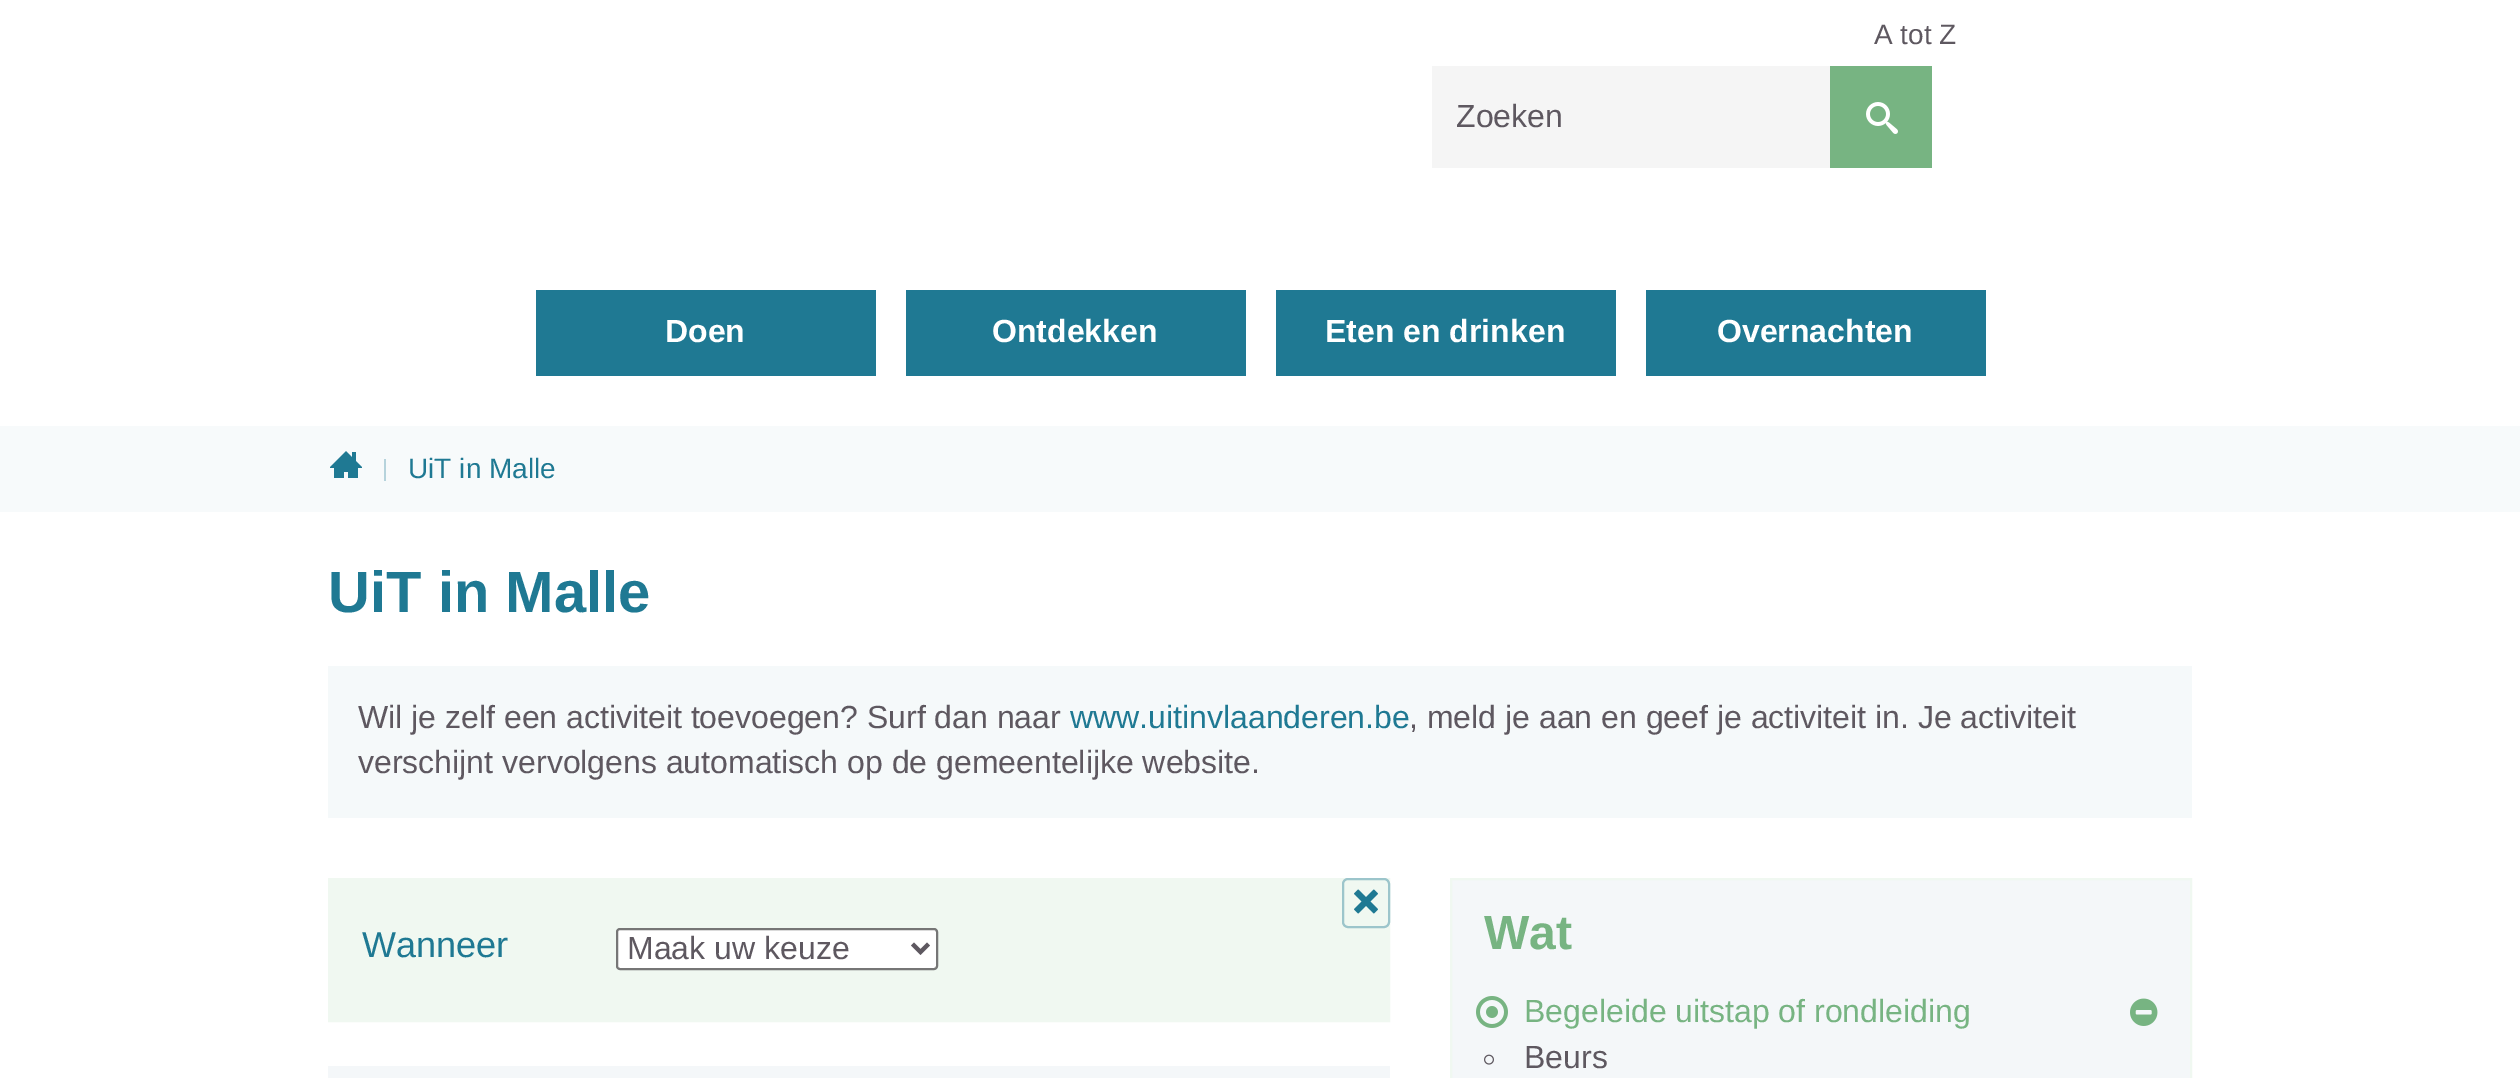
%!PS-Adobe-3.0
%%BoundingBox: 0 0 2520 1078
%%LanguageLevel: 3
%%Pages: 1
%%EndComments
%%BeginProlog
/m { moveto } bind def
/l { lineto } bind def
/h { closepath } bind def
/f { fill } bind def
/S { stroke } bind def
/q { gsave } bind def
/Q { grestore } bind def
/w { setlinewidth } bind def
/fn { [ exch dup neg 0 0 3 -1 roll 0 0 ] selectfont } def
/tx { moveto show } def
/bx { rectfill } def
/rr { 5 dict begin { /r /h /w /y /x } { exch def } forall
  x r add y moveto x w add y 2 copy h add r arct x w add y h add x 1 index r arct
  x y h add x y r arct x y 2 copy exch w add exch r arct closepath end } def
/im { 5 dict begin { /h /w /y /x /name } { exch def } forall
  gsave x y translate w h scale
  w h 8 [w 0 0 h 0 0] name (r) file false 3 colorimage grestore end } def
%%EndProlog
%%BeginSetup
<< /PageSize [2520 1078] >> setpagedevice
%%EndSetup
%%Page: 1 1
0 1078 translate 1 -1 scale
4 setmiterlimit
1 setgray
0 0 2520 1078 bx
/LiberationSans-Regular 28 fn
0.369 0.345 0.376 setrgbcolor
(A tot Z) 1874 44 tx
0.122 0.475 0.576 setrgbcolor
536 290 340 86 bx
/LiberationSans-Bold 32 fn
1 setgray
(Doen) 665 342 tx
0.122 0.475 0.576 setrgbcolor
906 290 340 86 bx
1 setgray
(Ontdekken) 992 342 tx
0.122 0.475 0.576 setrgbcolor
1276 290 340 86 bx
1 setgray
(Eten en drinken) 1325 342 tx
0.122 0.475 0.576 setrgbcolor
1646 290 340 86 bx
1 setgray
(Overnachten) 1717 342 tx
0.961 setgray
1432 66 398 102 bx
/LiberationSans-Regular 32 fn
0.369 0.345 0.376 setrgbcolor
(Zoeken) 1456 127 tx
0.467 0.706 0.51 setrgbcolor
1830 66 102 102 bx
(image0.raw) 1866 102 32 32 im
0.969 0.98 0.984 setrgbcolor
0 426 2520 86 bx
(image1.raw) 330 451 32 27 im
0.714 0.827 0.863 setrgbcolor
384 459 2 22 bx
/LiberationSans-Regular 28 fn
0.122 0.475 0.576 setrgbcolor
(UiT in Malle) 408 478 tx
/LiberationSans-Bold 58 fn
(UiT in Malle) 328 612 tx
0.961 0.976 0.98 setrgbcolor
328 666 1864 152 bx
/LiberationSans-Regular 32 fn
0.369 0.345 0.376 setrgbcolor
(Wil je zelf een activiteit toevoegen? Surf dan naar) 358 728 tx
0.122 0.475 0.576 setrgbcolor
(www.uitinvlaanderen.be) 1070 728 tx
0.369 0.345 0.376 setrgbcolor
(, meld je aan en geef je activiteit in. Je activiteit) 1409 728 tx
(verschijnt vervolgens automatisch op de gemeentelijke website.) 358 773 tx
0.957 0.969 0.976 setrgbcolor
328 1066 1062 12 bx
0.941 0.973 0.945 setrgbcolor
329 879 m 1389 879 l 1389 1021 l 329 1021 l h q f Q
2 w
S
0.612 0.773 0.796 setrgbcolor
1343 879 46 48 5 rr S
(image2.raw) 1354 889 24 25 im
/LiberationSans-Regular 36 fn
0.122 0.475 0.576 setrgbcolor
(Wanneer) 362 957 tx
1 setgray
617 929 320 40 3 rr q f Q
0.463 setgray
S
0.369 0.345 0.376 setrgbcolor
4 w
912.5 944 m 920.5 952 l 928.5 944 l S
/LiberationSans-Regular 32 fn
(Maak uw keuze) 627 959 tx
0.957 0.969 0.976 setrgbcolor
1451 879 m 2191 879 l 2191 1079 l 1451 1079 l h q f Q
0.941 0.973 0.945 setrgbcolor
2 w
S
/LiberationSans-Bold 48 fn
0.467 0.706 0.51 setrgbcolor
(Wat) 1484 949 tx
(image3.raw) 1476 996 32 32 im
/LiberationSans-Regular 32 fn
(Begeleide uitstap of rondleiding) 1524 1022 tx
(image4.raw) 2130 998 28 28 im
(image5.raw) 1484 1054 10 11 im
0.369 0.345 0.376 setrgbcolor
(Beurs) 1524 1068 tx
showpage
%%EOF
